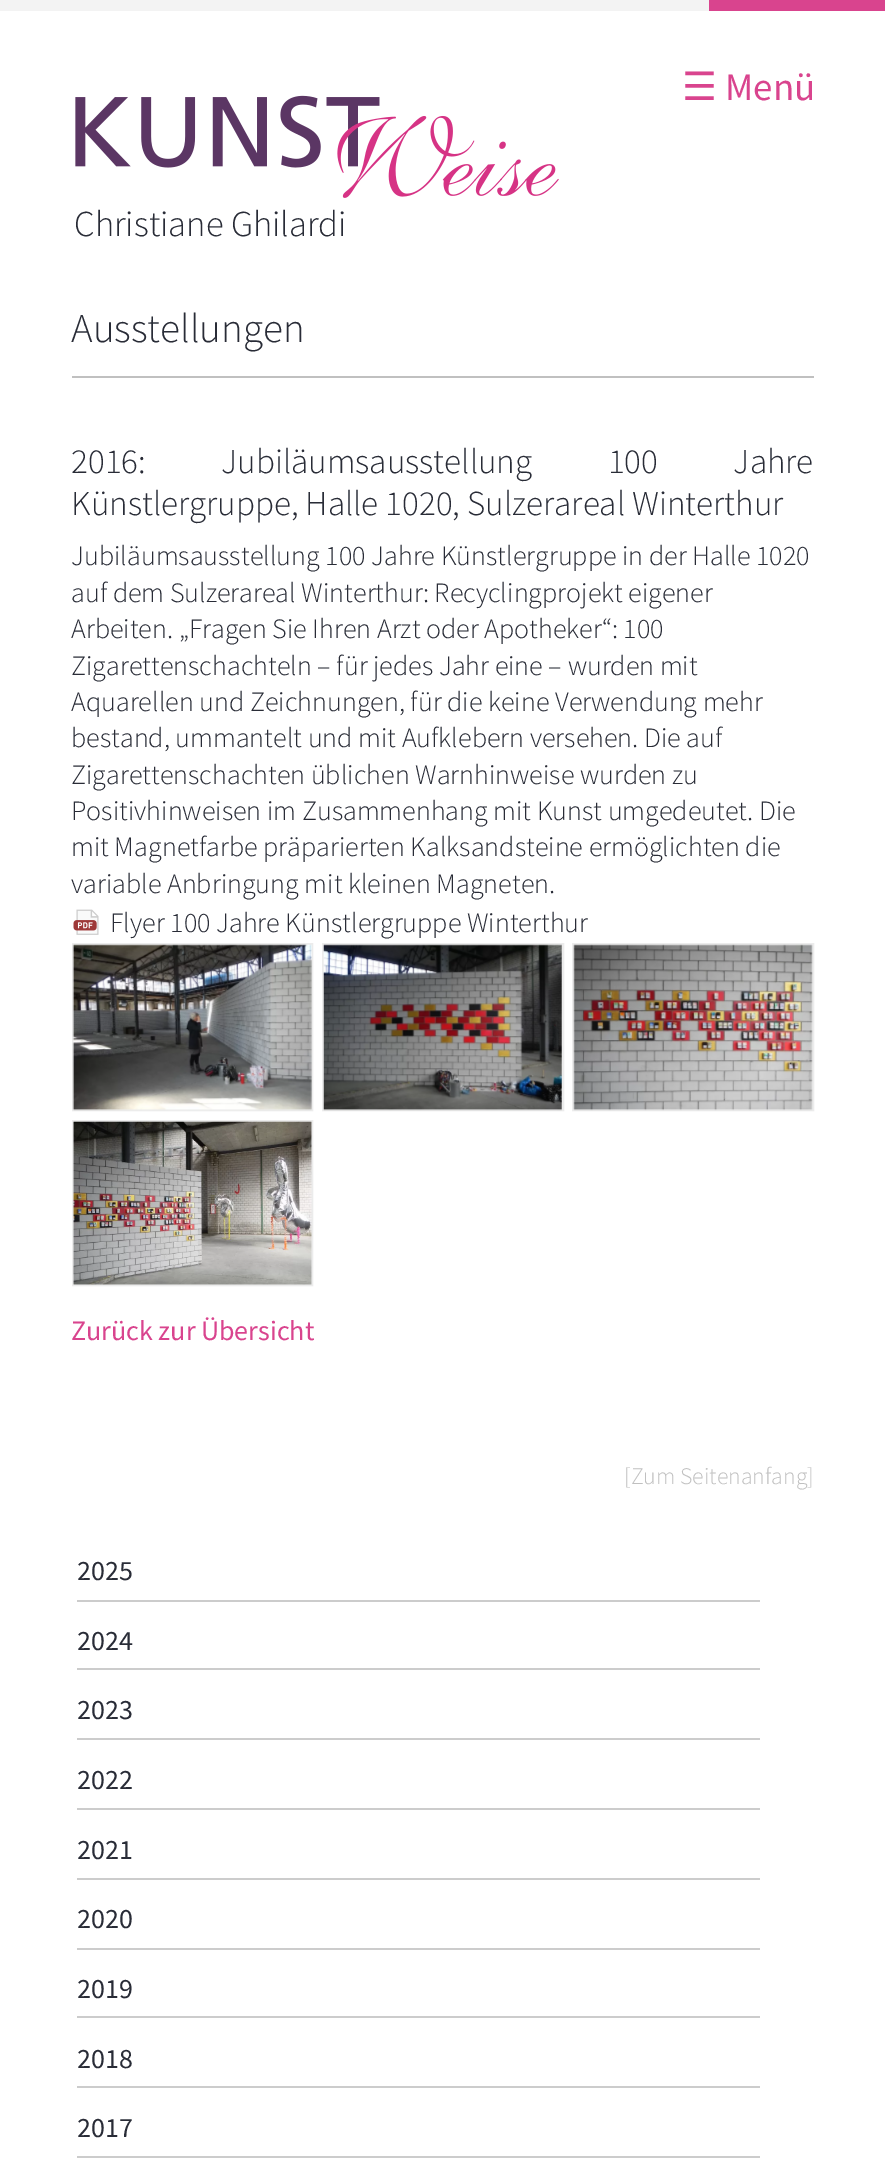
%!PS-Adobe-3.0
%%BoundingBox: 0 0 885 2180
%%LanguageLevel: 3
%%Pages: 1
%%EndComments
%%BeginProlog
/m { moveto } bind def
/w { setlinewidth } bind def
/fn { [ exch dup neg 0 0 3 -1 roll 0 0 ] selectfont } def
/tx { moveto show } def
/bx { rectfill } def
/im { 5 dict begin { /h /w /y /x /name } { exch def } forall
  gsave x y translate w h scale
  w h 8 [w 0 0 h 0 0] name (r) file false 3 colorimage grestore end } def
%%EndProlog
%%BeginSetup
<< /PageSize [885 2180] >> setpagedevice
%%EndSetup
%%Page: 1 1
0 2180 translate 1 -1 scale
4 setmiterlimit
0.851 0.267 0.557 setrgbcolor
0 0 885 2180 bx
0.953 setgray
0 0 709 11 bx
1 setgray
0 11 885 2169 bx
/DejaVuSans-Regular 39 fn
0.851 0.267 0.557 setrgbcolor
(☰) 682 100 tx
/SourceSansPro-Regular 39 fn
(Menü) 725 100 tx
(image0.raw) 75 95 484 103 im
/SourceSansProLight-Light 36.5 fn
0.161 0.173 0.216 setrgbcolor
(Christiane Ghilardi) 74 236 tx
0.753 setgray
72 376 742 2 bx
/SourceSansProLight-Light 41 fn
0.161 0.173 0.216 setrgbcolor
(Ausstellungen) 71 342 tx
/SourceSansProLight-Light 35 fn
71 473 m 68.5 0 32 (2016: Jubiläumsausstellung 100 Jahre) widthshow
(Künstlergruppe, Halle 1020, Sulzerareal Winterthur) 71 515 tx
/SourceSansProLight-Light 28 fn
(Jubiläumsausstellung 100 Jahre Künstlergruppe in der Halle 1020) 71 565 tx
(auf dem Sulzerareal Winterthur: Recyclingprojekt eigener) 71 602 tx
(Arbeiten. „Fragen Sie Ihren Arzt oder Apotheker“: 100) 71 638 tx
(Zigarettenschachteln – für jedes Jahr eine – wurden mit) 71 675 tx
(Aquarellen und Zeichnungen, für die keine Verwendung mehr) 71 711 tx
(bestand, ummantelt und mit Aufklebern versehen. Die auf) 71 747 tx
(Zigarettenschachten üblichen Warnhinweise wurden zu) 71 784 tx
(Positivhinweisen im Zusammenhang mit Kunst umgedeutet. Die) 71 820 tx
(mit Magnetfarbe präparierten Kalksandsteine ermöglichten die) 71 856 tx
(variable Anbringung mit kleinen Magneten.) 71 893 tx
(image1.raw) 73 909 26 26 im
(Flyer 100 Jahre Künstlergruppe Winterthur) 110 932 tx
0.925 setgray
2 w
73 944 239 166 rectstroke
(image2.raw) 72 944 240 167 im
323 944 240 166 rectstroke
(image3.raw) 323 944 239 167 im
573 944 240 166 rectstroke
(image4.raw) 573 944 240 167 im
73 1121 239 164 rectstroke
(image5.raw) 73 1121 239 164 im
/SourceSansPro-Regular 28 fn
0.851 0.267 0.557 setrgbcolor
(Zurück zur Übersicht) 71 1340 tx
/SourceSansProLight-Light 23.75 fn
0.753 setgray
([Zum Seitenanfang]) 624 1484 tx
0.8 setgray
77 1600 683 2 bx
/SourceSansPro-Regular 28 fn
0.161 0.173 0.216 setrgbcolor
(2025) 77 1580 tx
0.8 setgray
77 1668 683 2 bx
0.161 0.173 0.216 setrgbcolor
(2024) 77 1650 tx
0.8 setgray
77 1738 683 2 bx
0.161 0.173 0.216 setrgbcolor
(2023) 77 1719 tx
0.8 setgray
77 1808 683 2 bx
0.161 0.173 0.216 setrgbcolor
(2022) 77 1789 tx
0.8 setgray
77 1878 683 2 bx
0.161 0.173 0.216 setrgbcolor
(2021) 77 1859 tx
0.8 setgray
77 1948 683 2 bx
0.161 0.173 0.216 setrgbcolor
(2020) 77 1928 tx
0.8 setgray
77 2016 683 2 bx
0.161 0.173 0.216 setrgbcolor
(2019) 77 1998 tx
0.8 setgray
77 2086 683 2 bx
0.161 0.173 0.216 setrgbcolor
(2018) 77 2068 tx
0.8 setgray
77 2156 683 2 bx
0.161 0.173 0.216 setrgbcolor
(2017) 77 2137 tx
showpage
%%EOF
